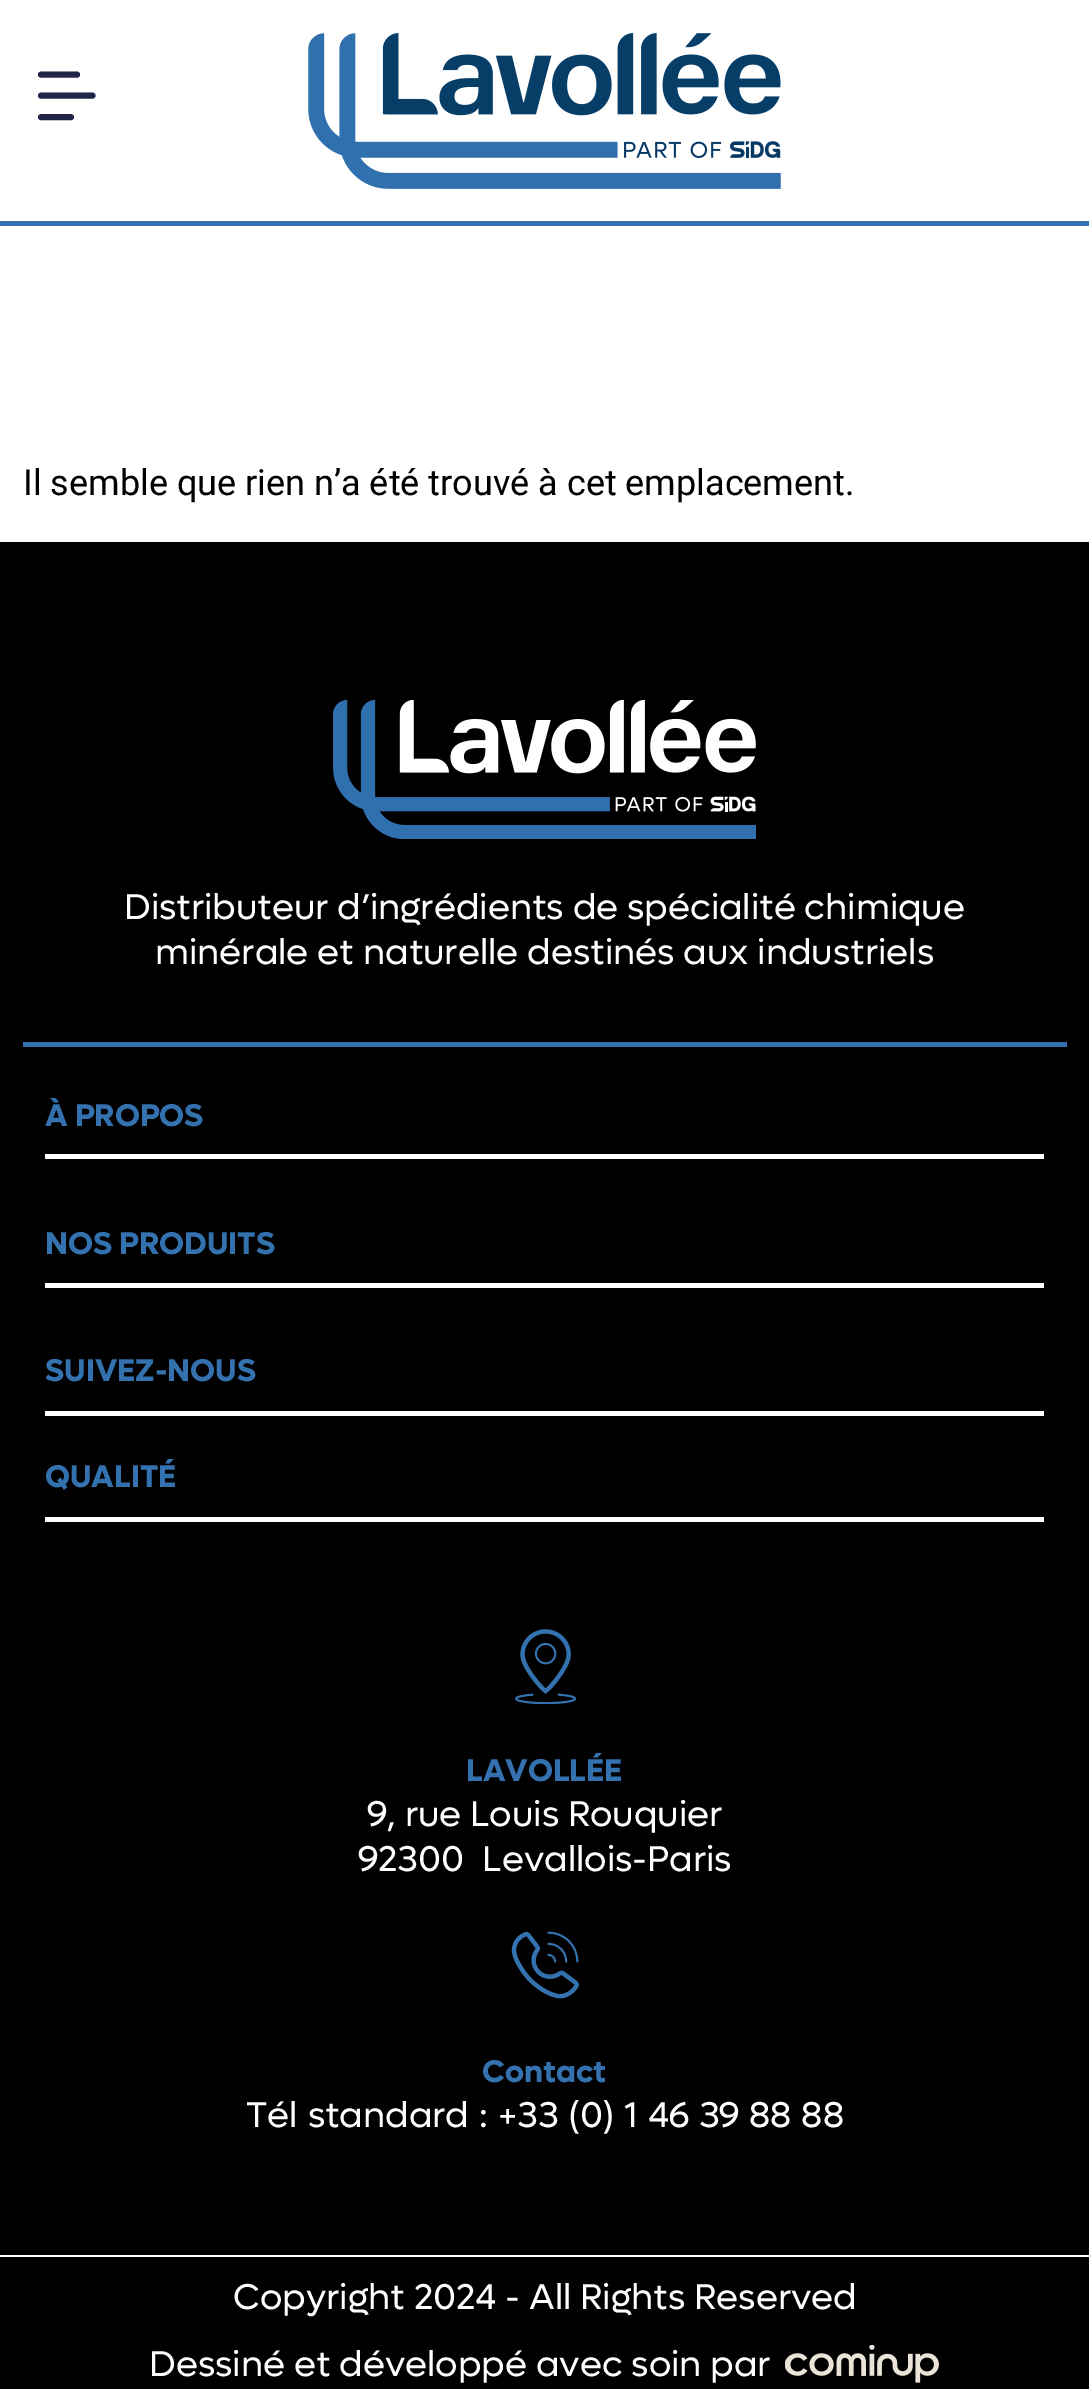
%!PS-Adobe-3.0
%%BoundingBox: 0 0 1089 2389
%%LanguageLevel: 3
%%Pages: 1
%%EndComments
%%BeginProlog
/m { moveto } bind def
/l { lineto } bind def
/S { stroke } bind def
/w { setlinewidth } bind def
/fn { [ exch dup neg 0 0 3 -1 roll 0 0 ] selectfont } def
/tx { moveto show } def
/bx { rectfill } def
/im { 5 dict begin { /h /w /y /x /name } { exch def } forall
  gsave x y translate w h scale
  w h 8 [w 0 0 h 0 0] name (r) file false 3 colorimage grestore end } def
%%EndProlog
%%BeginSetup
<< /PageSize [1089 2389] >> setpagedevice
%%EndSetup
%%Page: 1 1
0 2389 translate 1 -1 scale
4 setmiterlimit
1 setgray
0 0 1089 2389 bx
0.2 0.443 0.686 setrgbcolor
0 221 1089 5 bx
0.125 0.141 0.286 setrgbcolor
6 w
1 setlinecap
1 setlinejoin
41 74.5 m 77 74.5 l 41 95.5 m 92.5 95.5 l 41 117 m 71 117 l S
(image0.raw) 308 33 473 156 im
/Roboto-Regular 36 fn
0 setgray
(Il semble que rien n’a été trouvé à cet emplacement.) 23 495 tx
0 542 1089 1713 bx
(image1.raw) 333 700 423 139 im
/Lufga-Regular 36 fn
1 setgray
(Distributeur d’ingrédients de spécialité chimique) 124 919 tx
(minérale et naturelle destinés aux industriels) 155 964 tx
0.2 0.443 0.686 setrgbcolor
23 1042 1044 5 bx
1 setgray
45 1154 999 5 bx
/Lufga-Bold 31.5 fn
0.2 0.443 0.686 setrgbcolor
(À PROPOS) 45 1126 tx
1 setgray
45 1283 999 5 bx
0.2 0.443 0.686 setrgbcolor
(NOS PRODUITS) 45 1254 tx
1 setgray
45 1411 999 5 bx
0.2 0.443 0.686 setrgbcolor
(SUIVEZ-NOUS) 45 1381 tx
1 setgray
45 1517 999 5 bx
0.2 0.443 0.686 setrgbcolor
(QUALITÉ) 45 1487 tx
(image2.raw) 515 1629 62 75 im
(LAVOLLÉE) 466 1781 tx
/Lufga-Regular 36 fn
1 setgray
(9, rue Louis Rouquier) 367 1826 tx
358 1871 m 9 0 32 (92300 Levallois-Paris) widthshow
(image3.raw) 511 1931 68 68 im
/Lufga-Bold 31.5 fn
0.2 0.443 0.686 setrgbcolor
(Contact) 482 2082 tx
/Lufga-Regular 36 fn
1 setgray
246 2127 m 1 0 32 (Tél standard : +33 \(0\) 1 46 39 88 88) widthshow
0 setgray
0 2257 1089 132 bx
1 setgray
(Copyright 2024 - All Rights Reserved) 233 2309 tx
(Dessiné et développé avec soin par) 149 2376 tx
(image4.raw) 785 2345 154 38 im
showpage
%%EOF
